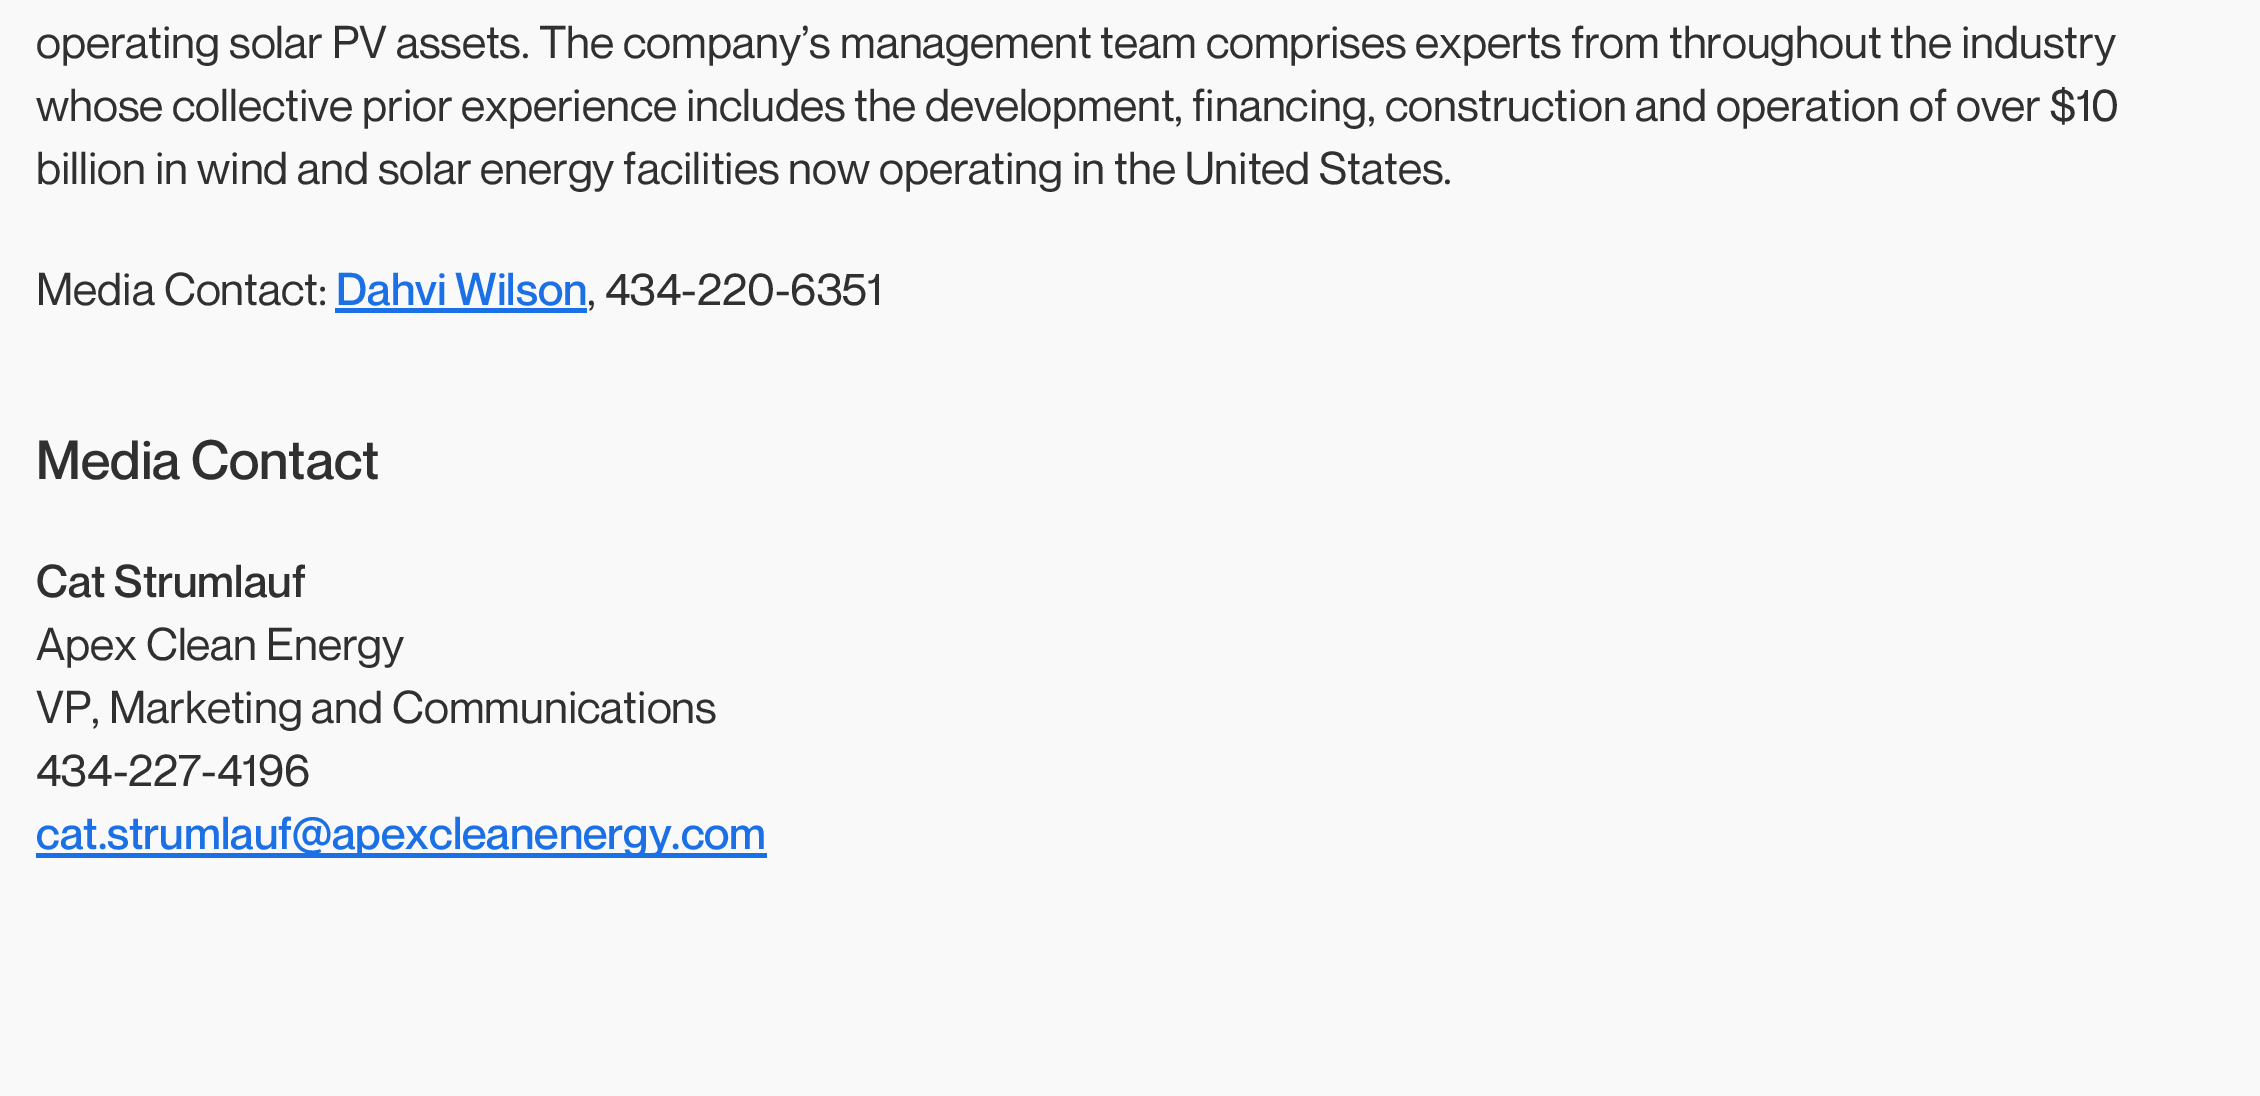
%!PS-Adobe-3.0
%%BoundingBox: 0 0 2260 1096
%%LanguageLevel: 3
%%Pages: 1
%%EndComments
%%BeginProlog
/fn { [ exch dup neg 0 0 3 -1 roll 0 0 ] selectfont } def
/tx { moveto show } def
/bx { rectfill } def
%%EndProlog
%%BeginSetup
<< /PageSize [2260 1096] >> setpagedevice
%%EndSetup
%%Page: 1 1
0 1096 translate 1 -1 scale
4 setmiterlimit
0.976 setgray
0 0 2260 1096 bx
/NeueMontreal-Regular 45 fn
0.188 setgray
(operating solar PV assets. The company’s management team comprises experts from throughout the industry) 36 58 tx
(whose collective prior experience includes the development, financing, construction and operation of over $10) 36 121 tx
(billion in wind and solar energy facilities now operating in the United States.) 36 184 tx
(Media Contact:) 36 305 tx
/NeueMontreal-Medium 45 fn
0.11 0.439 0.902 setrgbcolor
(Dahvi Wilson) 336 305 tx
335 308 252 5 bx
/NeueMontreal-Regular 45 fn
0.188 setgray
(, 434-220-6351) 587 305 tx
/NeueMontreal-Medium 54 fn
(Media Contact) 36 479 tx
/NeueMontreal-Medium 45 fn
(Cat Strumlauf) 36 597 tx
/NeueMontreal-Regular 45 fn
(Apex Clean Energy) 36 660 tx
(VP, Marketing and Communications) 36 723 tx
(434-227-4196) 36 786 tx
0.11 0.439 0.902 setrgbcolor
36 853 731 5 bx
/NeueMontreal-Medium 45 fn
(cat.strumlauf@apexcleanenergy.com) 36 849 tx
showpage
%%EOF
